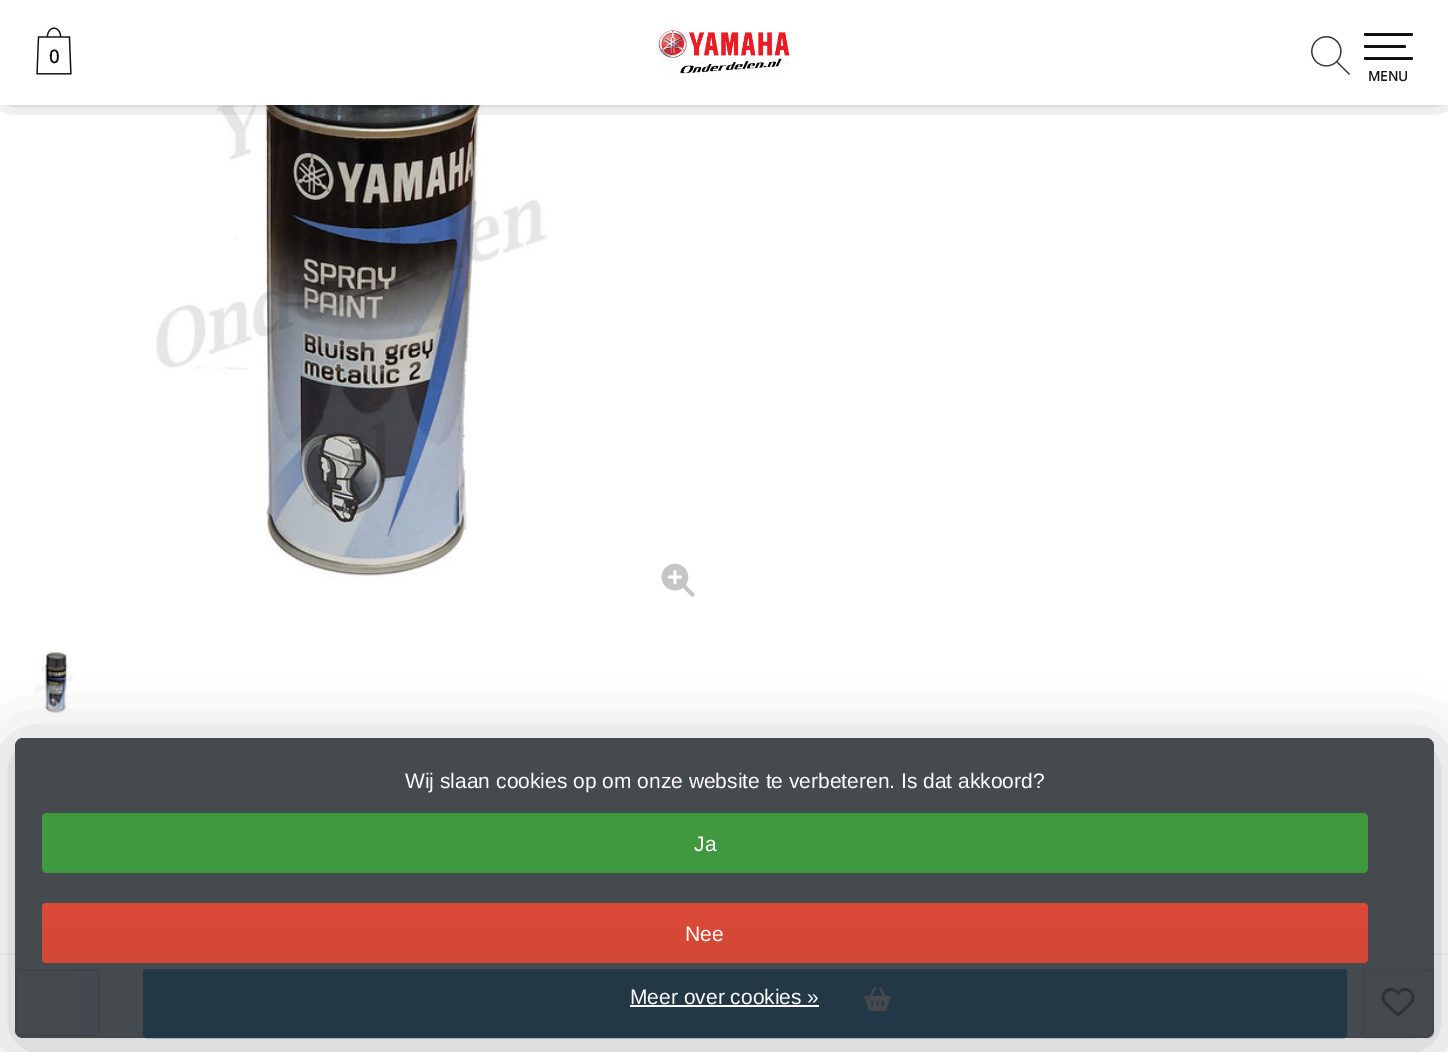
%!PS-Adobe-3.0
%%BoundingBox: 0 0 1448 1052
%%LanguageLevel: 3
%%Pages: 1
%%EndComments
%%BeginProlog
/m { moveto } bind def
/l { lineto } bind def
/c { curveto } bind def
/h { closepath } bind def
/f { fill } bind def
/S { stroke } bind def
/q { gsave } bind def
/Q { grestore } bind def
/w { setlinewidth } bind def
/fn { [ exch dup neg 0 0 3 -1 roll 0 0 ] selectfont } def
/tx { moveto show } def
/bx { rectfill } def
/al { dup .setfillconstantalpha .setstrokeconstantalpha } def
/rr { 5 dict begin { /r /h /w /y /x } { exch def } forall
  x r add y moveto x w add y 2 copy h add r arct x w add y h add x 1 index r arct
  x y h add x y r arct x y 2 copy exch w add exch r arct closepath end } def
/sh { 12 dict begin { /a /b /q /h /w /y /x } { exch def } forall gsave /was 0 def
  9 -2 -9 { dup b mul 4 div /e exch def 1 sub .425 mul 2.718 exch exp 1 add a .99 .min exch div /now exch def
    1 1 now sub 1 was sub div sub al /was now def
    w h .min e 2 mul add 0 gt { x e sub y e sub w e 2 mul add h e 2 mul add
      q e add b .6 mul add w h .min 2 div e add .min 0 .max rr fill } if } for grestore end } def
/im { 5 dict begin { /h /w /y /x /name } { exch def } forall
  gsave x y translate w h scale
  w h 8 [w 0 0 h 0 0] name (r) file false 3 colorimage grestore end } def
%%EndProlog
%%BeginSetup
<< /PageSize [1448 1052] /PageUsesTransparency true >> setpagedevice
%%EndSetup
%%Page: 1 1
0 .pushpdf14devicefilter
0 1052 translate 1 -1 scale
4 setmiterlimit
1 setgray
0 0 1448 1052 bx
(image3.raw) 156 105 391 475 im
0 setgray
9 9 1431 72 0 15 1 sh
9 9 1431 72 0 15 1 sh
1 setgray
0 0 1448 105 bx
(image0.raw) 658 30 132 44 im
(image1.raw) 36 27 36 48 im
/OpenSans-Bold 18 fn
0.067 setgray
(0) 49 63 tx
(image2.raw) 1311 36 39 39 im
1364 33 49 3 1.5 rr f
1364 45 42 3 1.5 rr f
1364 57 49 3 1.5 rr f
/OpenSans-Bold 13.5 fn
(MENU) 1368 81 tx
(image4.raw) 661 563 34 34 im
(image5.raw) 34 652 39 63 im
0.957 setgray
0 953 1448 2 bx
0.867 setgray
17 969 58 2 bx
17 1034 58 2 bx
15 971 2 63 bx
0.969 setgray
75 969 m 96 969 l 97.5 969 99 970.5 99 972 c 99 1032 l 99 1033.5 97.5 1035 96 1035 c 75 1035 l h f
0.867 setgray
75 969 23 2 bx
98 971 2 63 bx
75 1034 23 2 bx
0.094 0.533 0.788 setrgbcolor
144 970 1202 67 2 rr q f Q
2 w
S
(image6.raw) 864 987 27 24 im
0.902 setgray
1363 970 70 67 2 rr S
(image7.raw) 1381 987 34 29 im
q
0 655 m 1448 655 l 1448 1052 l 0 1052 l h 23 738 m 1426 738 l 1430.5 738 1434 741.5 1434 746 c 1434 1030 l 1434 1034.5 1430.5 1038 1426 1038 c 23 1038 l 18.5 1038 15 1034.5 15 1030 c 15 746 l 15 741.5 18.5 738 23 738 c h eoclip newpath
0 setgray
15 746 1419 300 8 30 0.25 sh
Q
0.85 al
0.141 0.165 0.188 setrgbcolor
15 738 1419 300 8 rr f
/LiberationSans-Regular 21 fn
1 al
1 setgray
(Wij slaan cookies op om onze website te verbeteren. Is dat akkoord?) 405 788 tx
0.251 0.596 0.247 setrgbcolor
42 813 1326 60 5 rr f
1 setgray
(Ja) 694 851 tx
q 42 903 1326 60 5 rr clip newpath
<< /ShadingType 2 /ColorSpace /DeviceRGB /Coords [705 903 705 963] /Extend [true true] /Function << /FunctionType 2 /Domain [0 1] /C0 [0.863 0.29 0.22] /C1 [0.82 0.282 0.212] /N 1 >> >> shfill Q
(Nee) 685 941 tx
(Meer over cookies ») 630 1004 tx
630 1005 189 2 bx
.poppdf14devicefilter showpage
%%EOF
